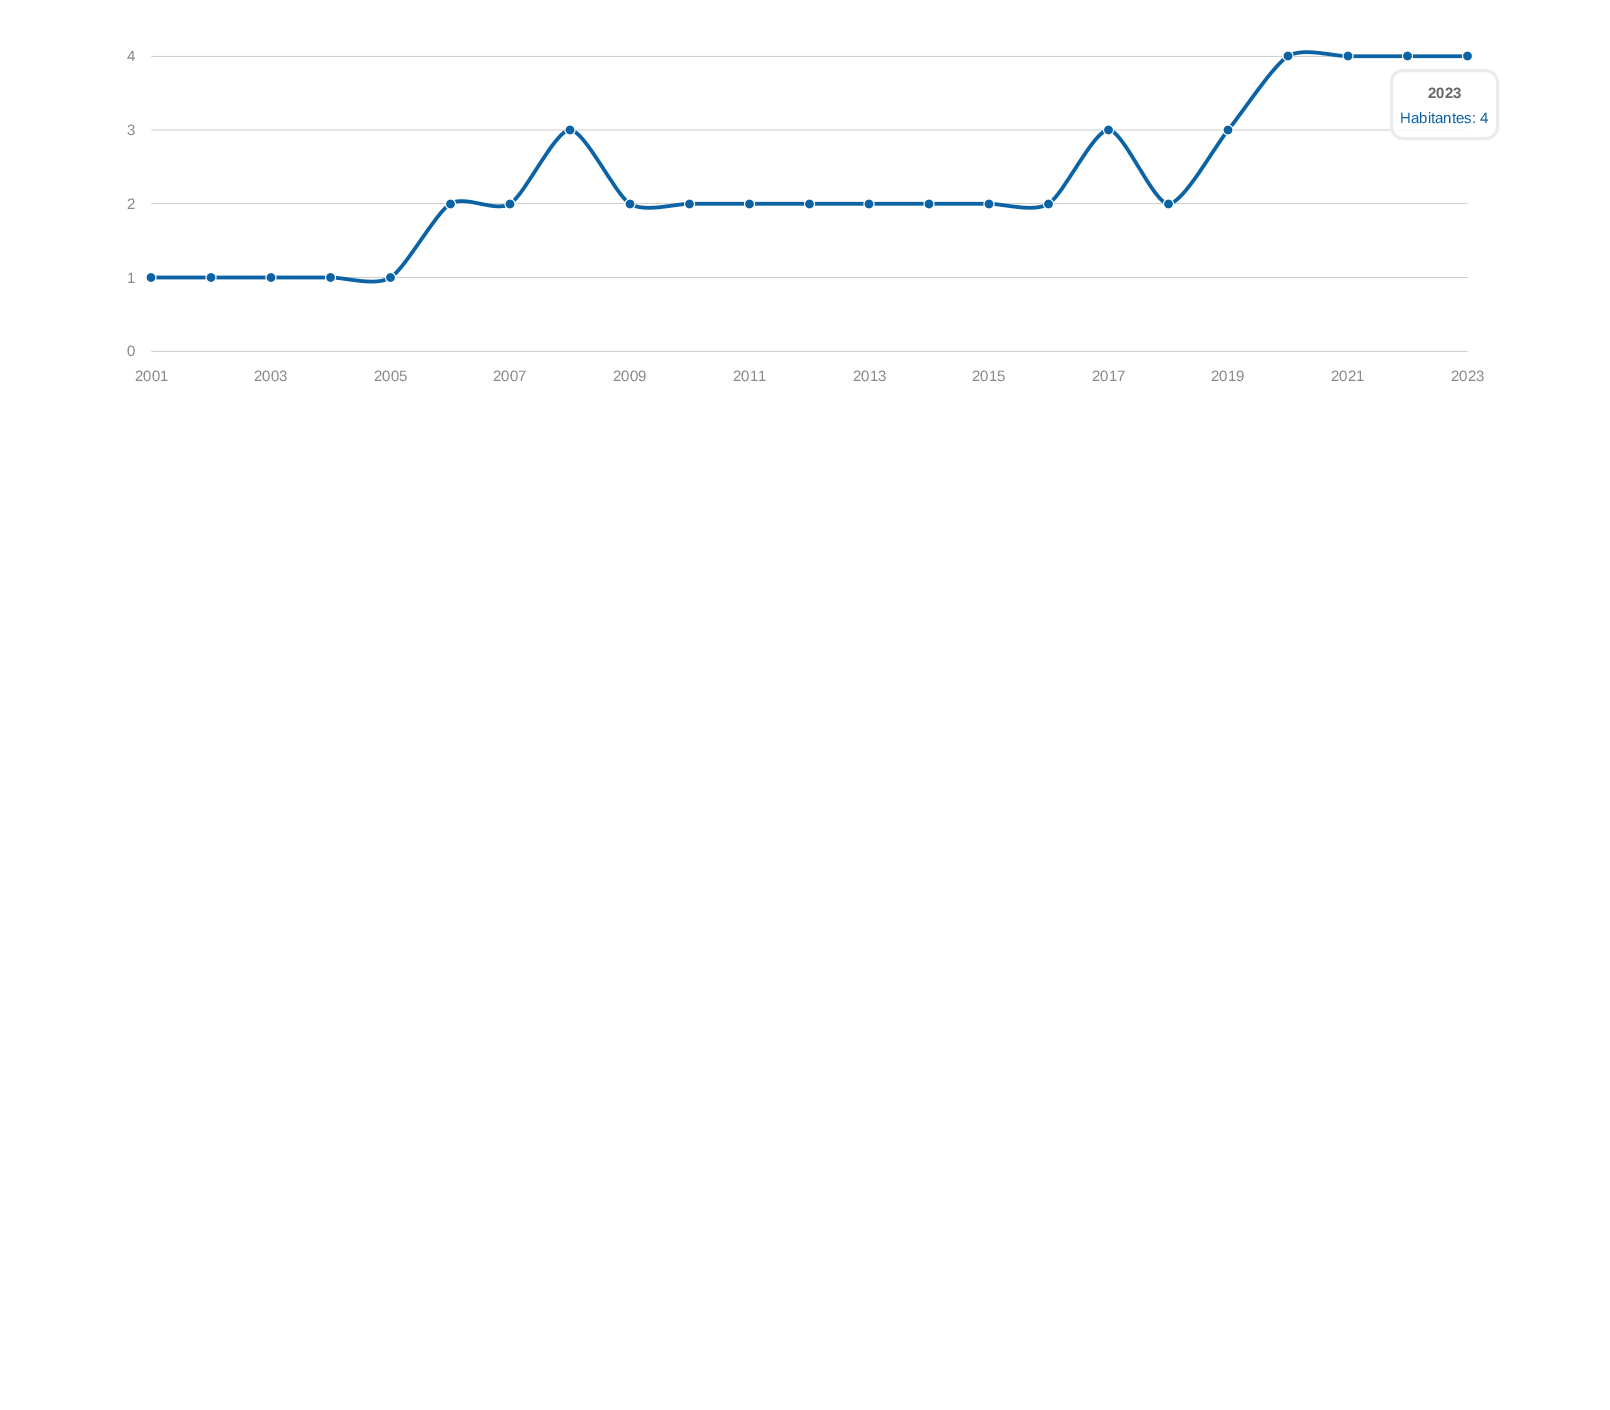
%!PS-Adobe-3.0
%%BoundingBox: 0 0 1610 1410
%%LanguageLevel: 3
%%Pages: 1
%%EndComments
%%BeginProlog
/f { fill } bind def
/S { stroke } bind def
/w { setlinewidth } bind def
/fn { [ exch dup neg 0 0 3 -1 roll 0 0 ] selectfont } def
/tx { moveto show } def
/bx { rectfill } def
/al { dup .setfillconstantalpha .setstrokeconstantalpha } def
/rr { 5 dict begin { /r /h /w /y /x } { exch def } forall
  x r add y moveto x w add y 2 copy h add r arct x w add y h add x 1 index r arct
  x y h add x y r arct x y 2 copy exch w add exch r arct closepath end } def
/im { 5 dict begin { /h /w /y /x /name } { exch def } forall
  gsave x y translate w h scale
  w h 8 [w 0 0 h 0 0] name (r) file false 3 colorimage grestore end } def
%%EndProlog
%%BeginSetup
<< /PageSize [1610 1410] /PageUsesTransparency true >> setpagedevice
%%EndSetup
%%Page: 1 1
0 .pushpdf14devicefilter
0 1410 translate 1 -1 scale
4 setmiterlimit
1 setgray
0 0 1610 1410 bx
/LiberationSans-Regular 15 fn
0.533 setgray
(4) 127 61 tx
(image0.raw) 146 50 1327 302 im
0.8 al
1 setgray
1390 69 109 71 13 rr f
0.902 setgray
3 w
1391.5 70.5 106 68 11.5 rr S
/LiberationSans-Bold 15 fn
1 al
0.4 setgray
(2023) 1428 98 tx
/LiberationSans-Regular 15 fn
0.043 0.384 0.643 setrgbcolor
(Habitantes: 4) 1400 123 tx
0.533 setgray
(3) 127 135 tx
(2) 127 209 tx
(1) 127 283 tx
(0) 127 356 tx
(2001) 135 381 tx
(2003) 254 381 tx
(2005) 374 381 tx
(2007) 493 381 tx
(2009) 613 381 tx
(2011) 733 381 tx
(2013) 853 381 tx
(2015) 972 381 tx
(2017) 1092 381 tx
(2019) 1211 381 tx
(2021) 1331 381 tx
(2023) 1451 381 tx
.poppdf14devicefilter showpage
%%EOF
